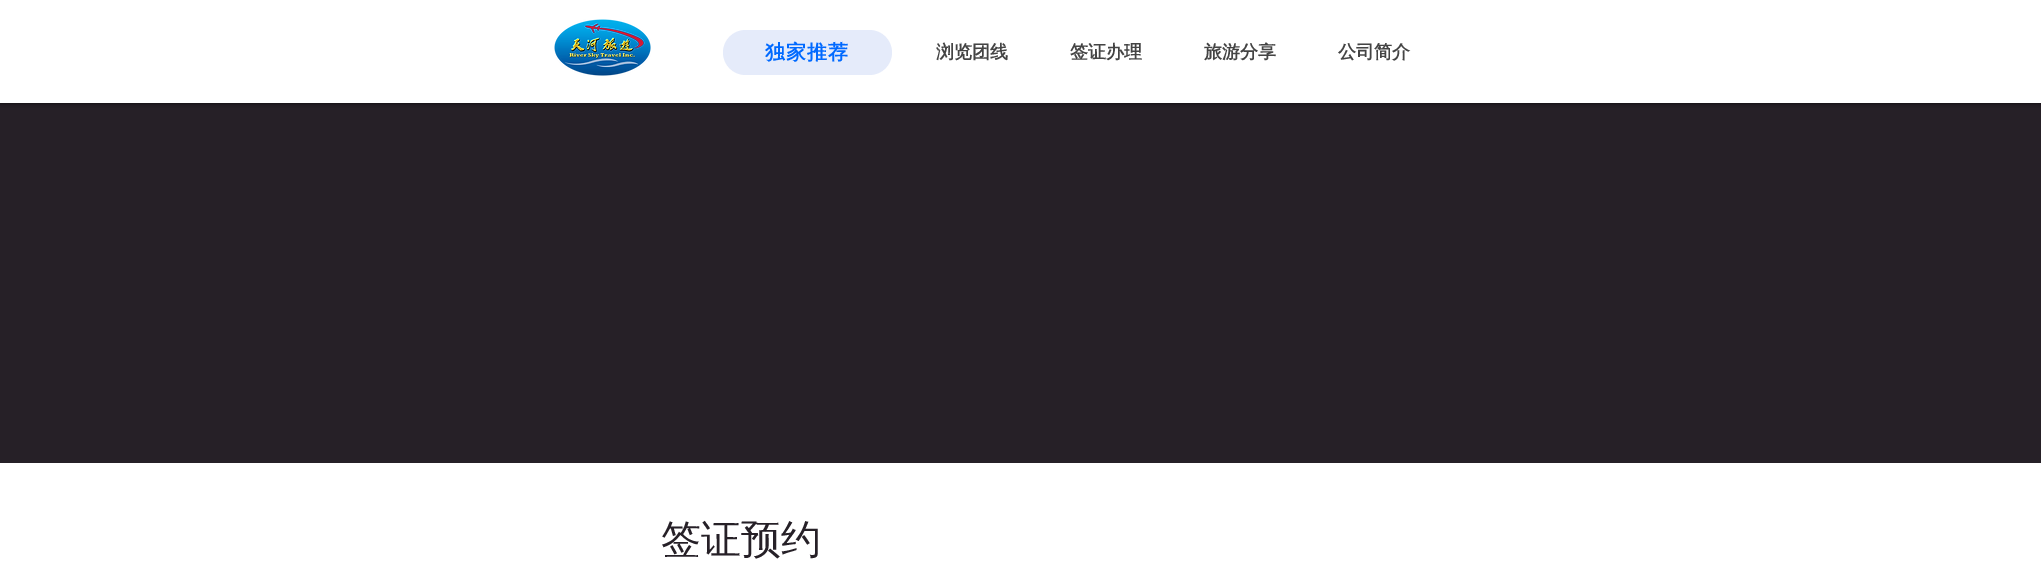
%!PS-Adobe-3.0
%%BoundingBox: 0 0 2041 563
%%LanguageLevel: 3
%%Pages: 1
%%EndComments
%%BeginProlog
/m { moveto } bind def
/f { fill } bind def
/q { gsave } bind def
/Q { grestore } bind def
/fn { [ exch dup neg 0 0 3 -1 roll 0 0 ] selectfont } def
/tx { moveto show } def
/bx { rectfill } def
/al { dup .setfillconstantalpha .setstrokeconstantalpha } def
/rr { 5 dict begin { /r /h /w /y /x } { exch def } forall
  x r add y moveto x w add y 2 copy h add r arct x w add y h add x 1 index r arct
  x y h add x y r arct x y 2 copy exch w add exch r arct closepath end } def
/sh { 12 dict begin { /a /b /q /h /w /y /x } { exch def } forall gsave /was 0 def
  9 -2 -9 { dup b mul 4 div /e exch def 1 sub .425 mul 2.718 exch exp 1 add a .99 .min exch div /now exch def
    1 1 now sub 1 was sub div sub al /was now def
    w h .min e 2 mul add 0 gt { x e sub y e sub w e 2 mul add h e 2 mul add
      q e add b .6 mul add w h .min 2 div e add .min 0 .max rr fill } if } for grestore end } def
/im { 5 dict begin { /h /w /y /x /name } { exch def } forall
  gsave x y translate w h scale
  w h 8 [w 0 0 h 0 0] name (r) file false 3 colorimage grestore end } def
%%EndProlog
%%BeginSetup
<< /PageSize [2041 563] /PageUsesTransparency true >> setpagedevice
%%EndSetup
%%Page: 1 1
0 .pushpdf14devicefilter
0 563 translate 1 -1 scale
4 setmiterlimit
1 setgray
0 0 2041 563 bx
0.149 0.125 0.153 setrgbcolor
0 103 2041 360 bx
q
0 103 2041 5 rectclip
0 setgray
0 0 2041 103 0 2.5 0.7 sh
Q
(image0.raw) 554 19 97 57 im
0.898 0.922 0.98 setrgbcolor
723 30 169 45 22.5 rr f
/WenQuanYiZenHei-Bold 20 fn
0 0.412 1 setrgbcolor
765 59 m 1 0 (独家推荐) ashow
/WenQuanYiZenHei-Bold 18 fn
0.267 setgray
(浏览团线) 936 58 tx
(签证办理) 1070 58 tx
(旅游分享) 1204 58 tx
(公司简介) 1338 58 tx
/WenQuanYiZenHei-Medium 40 fn
0.149 0.125 0.153 setrgbcolor
(签证预约) 661 553 tx
.poppdf14devicefilter showpage
%%EOF
